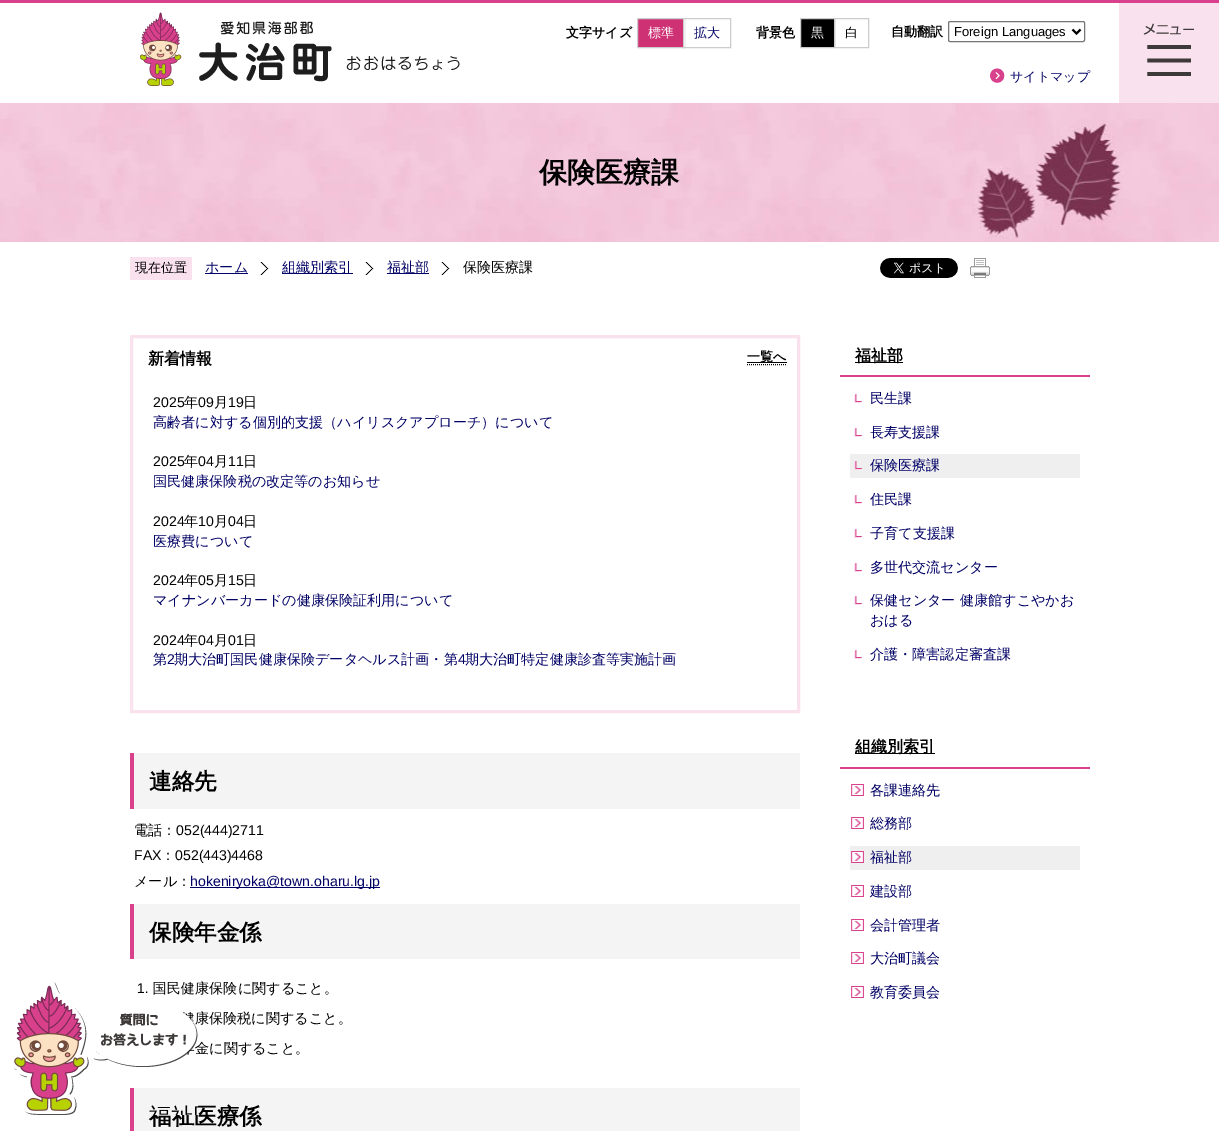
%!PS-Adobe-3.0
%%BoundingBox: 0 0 1219 1131
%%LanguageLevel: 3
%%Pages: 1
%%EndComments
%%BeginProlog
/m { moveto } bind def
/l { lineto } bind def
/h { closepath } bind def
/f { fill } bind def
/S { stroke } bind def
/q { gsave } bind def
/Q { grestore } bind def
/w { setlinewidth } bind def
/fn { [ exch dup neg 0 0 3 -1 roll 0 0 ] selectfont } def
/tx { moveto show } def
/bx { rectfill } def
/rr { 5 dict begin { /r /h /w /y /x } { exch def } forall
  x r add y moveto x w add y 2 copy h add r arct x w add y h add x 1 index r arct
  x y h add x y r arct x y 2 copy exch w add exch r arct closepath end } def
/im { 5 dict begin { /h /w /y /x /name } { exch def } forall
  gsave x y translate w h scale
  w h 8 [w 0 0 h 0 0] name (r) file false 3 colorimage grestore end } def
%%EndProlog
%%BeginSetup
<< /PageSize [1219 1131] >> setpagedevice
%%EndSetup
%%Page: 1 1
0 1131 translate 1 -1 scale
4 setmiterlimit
1 setgray
0 0 1219 1131 bx
0.851 0.255 0.549 setrgbcolor
0 0 1219 3 bx
(image0.raw) 140 12 320 74 im
/WenQuanYiZenHei-Bold 13 fn
0 setgray
(文字サイズ) 566 37 tx
0.808 0.196 0.455 setrgbcolor
638 19 45 28 bx
0.8 setgray
637.5 18.5 47 29 rectstroke
/WenQuanYiZenHei-Medium 13 fn
1 setgray
(標準) 648 37 tx
684 19 1 28 bx
0.8 setgray
683.5 18.5 47 29 rectstroke
0 0 0.4 setrgbcolor
(拡大) 694 37 tx
/WenQuanYiZenHei-Bold 13 fn
0 setgray
(背景色) 756 37 tx
800.5 18.5 m 834.5 18.5 l 834.5 47.5 l 800.5 47.5 l h q f Q
0.8 setgray
S
/WenQuanYiZenHei-Medium 13 fn
1 setgray
(黒) 811 37 tx
0.8 setgray
834.5 18.5 34 29 rectstroke
0 setgray
(白) 845 37 tx
/WenQuanYiZenHei-Bold 13 fn
(自動翻訳) 891 36 tx
0.463 setgray
948.5 21.5 136 20 1.5 rr S
0 setgray
2 w
1072.5 29.5 m 1076.5 33.5 l 1080.5 29.5 l S
/LiberationSans-Regular 13 fn
(Foreign Languages) 954 36 tx
(image1.raw) 990 68 15 15 im
/WenQuanYiZenHei-Medium 13 fn
0 0 0.4 setrgbcolor
(サイトマップ) 1010 81 tx
0.976 0.882 0.933 setrgbcolor
1119 3 100 100 bx
(image2.raw) 1143 23 51 53 im
(image3.raw) 0 103 1219 139 im
/WenQuanYiZenHei-Bold 28 fn
0 setgray
(保険医療課) 539 182 tx
0.976 0.886 0.933 setrgbcolor
130 257 62 23 bx
/WenQuanYiZenHei-Medium 13 fn
0 setgray
(現在位置) 135 272 tx
0 0 0.4 setrgbcolor
205 273 43 1 bx
/WenQuanYiZenHei-Medium 14.1 fn
(ホーム) 205 272 tx
(image4.raw) 260 262 9 13 im
282 273 71 1 bx
(組織別索引) 282 272 tx
(image4.raw) 365 262 9 13 im
387 273 42 1 bx
(福祉部) 387 272 tx
(image4.raw) 441 262 9 13 im
0 setgray
(保険医療課) 463 272 tx
(image5.raw) 880 258 78 20 im
(image6.raw) 970 258 20 20 im
/LiberationSans-Regular 14.1 fn
(1.) 137 993 tx
/WenQuanYiZenHei-Medium 14.1 fn
(国民健康保険に関すること。) 153 993 tx
(康保険税に関すること。) 195 1023 tx
(金に関すること。) 195 1053 tx
0.957 setgray
134 1088 666 43 bx
0.851 0.255 0.549 setrgbcolor
130 1088 4 43 bx
/WenQuanYiZenHei-Bold 22.5 fn
0 setgray
(福祉医療係) 149 1124 tx
(image7.raw) 14 982 184 133 im
0.976 0.882 0.933 setrgbcolor
3 w
131.5 336.5 667 375 rectstroke
/WenQuanYiZenHei-Bold 16 fn
0 setgray
(新着情報) 148 364 tx
747 362 40 1 bx
/WenQuanYiZenHei-Bold 13 fn
(一覧へ) 747 361 tx
1 w
[1 1] 0 setdash
747 364.5 m 787 364.5 l S
/LiberationSans-Regular 14.1 fn
(2025) 153 407 tx
/WenQuanYiZenHei-Medium 14.1 fn
(年) 184 407 tx
/LiberationSans-Regular 14.1 fn
(09) 198 407 tx
/WenQuanYiZenHei-Medium 14.1 fn
(月) 214 407 tx
/LiberationSans-Regular 14.1 fn
(19) 228 407 tx
/WenQuanYiZenHei-Medium 14.1 fn
(日) 243 407 tx
0 0 0.4 setrgbcolor
(高齢者に対する個別的支援（ハイリスクアプローチ）について) 153 427 tx
/LiberationSans-Regular 14.1 fn
0 setgray
(2025) 153 466 tx
/WenQuanYiZenHei-Medium 14.1 fn
(年) 184 466 tx
/LiberationSans-Regular 14.1 fn
(04) 198 466 tx
/WenQuanYiZenHei-Medium 14.1 fn
(月) 214 466 tx
/LiberationSans-Regular 14.1 fn
(11) 228 466 tx
/WenQuanYiZenHei-Medium 14.1 fn
(日) 243 466 tx
0 0 0.4 setrgbcolor
(国民健康保険税の改定等のお知らせ) 153 486 tx
/LiberationSans-Regular 14.1 fn
0 setgray
(2024) 153 526 tx
/WenQuanYiZenHei-Medium 14.1 fn
(年) 184 526 tx
/LiberationSans-Regular 14.1 fn
(10) 198 526 tx
/WenQuanYiZenHei-Medium 14.1 fn
(月) 214 526 tx
/LiberationSans-Regular 14.1 fn
(04) 228 526 tx
/WenQuanYiZenHei-Medium 14.1 fn
(日) 243 526 tx
0 0 0.4 setrgbcolor
(医療費について) 153 546 tx
/LiberationSans-Regular 14.1 fn
0 setgray
(2024) 153 585 tx
/WenQuanYiZenHei-Medium 14.1 fn
(年) 184 585 tx
/LiberationSans-Regular 14.1 fn
(05) 198 585 tx
/WenQuanYiZenHei-Medium 14.1 fn
(月) 214 585 tx
/LiberationSans-Regular 14.1 fn
(15) 228 585 tx
/WenQuanYiZenHei-Medium 14.1 fn
(日) 243 585 tx
0 0 0.4 setrgbcolor
(マイナンバーカードの健康保険証利用について) 153 605 tx
/LiberationSans-Regular 14.1 fn
0 setgray
(2024) 153 645 tx
/WenQuanYiZenHei-Medium 14.1 fn
(年) 184 645 tx
/LiberationSans-Regular 14.1 fn
(04) 198 645 tx
/WenQuanYiZenHei-Medium 14.1 fn
(月) 214 645 tx
/LiberationSans-Regular 14.1 fn
(01) 228 645 tx
/WenQuanYiZenHei-Medium 14.1 fn
(日) 243 645 tx
0 0 0.4 setrgbcolor
(第) 153 664 tx
/LiberationSans-Regular 14.1 fn
(2) 167 664 tx
/WenQuanYiZenHei-Medium 14.1 fn
(期大治町国民健康保険データヘルス計画・第) 174 664 tx
/LiberationSans-Regular 14.1 fn
(4) 458 664 tx
/WenQuanYiZenHei-Medium 14.1 fn
(期大治町特定健康診査等実施計画) 465 664 tx
0.957 setgray
134 753 666 56 bx
0.851 0.255 0.549 setrgbcolor
130 753 4 56 bx
/WenQuanYiZenHei-Bold 22.5 fn
0 setgray
(連絡先) 149 789 tx
/WenQuanYiZenHei-Medium 14.1 fn
(電話：) 134 835 tx
/LiberationSans-Regular 14.1 fn
(052\(444\)2711) 176 835 tx
(FAX) 134 860 tx
/WenQuanYiZenHei-Medium 14.1 fn
(：) 161 860 tx
/LiberationSans-Regular 14.1 fn
(052\(443\)4468) 175 860 tx
/WenQuanYiZenHei-Medium 14.1 fn
(メール：) 134 886 tx
0 0 0.4 setrgbcolor
190 887 190 1 bx
/LiberationSans-Regular 14.1 fn
(hokeniryoka@town.oharu.lg.jp) 190 886 tx
0.957 setgray
134 904 666 55 bx
0.851 0.255 0.549 setrgbcolor
130 904 4 55 bx
/WenQuanYiZenHei-Bold 22.5 fn
0 setgray
(保険年金係) 149 940 tx
0.851 0.255 0.549 setrgbcolor
840 375 250 2 bx
0 setgray
855 362 48 1 bx
/WenQuanYiZenHei-Bold 16 fn
(福祉部) 855 361 tx
(image8.raw) 854 394 8 9 im
/WenQuanYiZenHei-Medium 14.1 fn
0 0 0.4 setrgbcolor
(民生課) 870 403 tx
(image8.raw) 854 428 8 9 im
(長寿支援課) 870 437 tx
0.937 setgray
850 454 230 24 bx
(image9.raw) 854 461 8 9 im
0 0 0.4 setrgbcolor
(保険医療課) 870 470 tx
(image8.raw) 854 495 8 9 im
(住民課) 870 504 tx
(image8.raw) 854 529 8 9 im
(子育て支援課) 870 538 tx
(image8.raw) 854 563 8 9 im
(多世代交流センター) 870 572 tx
(image8.raw) 854 596 8 9 im
(保健センター 健康館すこやかお) 870 605 tx
(おはる) 870 625 tx
(image8.raw) 854 650 8 9 im
(介護・障害認定審査課) 870 659 tx
0.851 0.255 0.549 setrgbcolor
840 767 250 2 bx
0 setgray
855 753 80 1 bx
/WenQuanYiZenHei-Bold 16 fn
(組織別索引) 855 752 tx
(image10.raw) 851 784 13 12 im
/WenQuanYiZenHei-Medium 14.1 fn
0 0 0.4 setrgbcolor
(各課連絡先) 870 795 tx
(image10.raw) 851 817 13 12 im
(総務部) 870 828 tx
0.937 setgray
850 846 230 24 bx
(image11.raw) 851 851 13 12 im
0 0 0.4 setrgbcolor
(福祉部) 870 862 tx
(image10.raw) 851 885 13 12 im
(建設部) 870 896 tx
(image10.raw) 851 919 13 12 im
(会計管理者) 870 930 tx
(image10.raw) 851 952 13 12 im
(大治町議会) 870 963 tx
(image10.raw) 851 986 13 12 im
(教育委員会) 870 997 tx
showpage
%%EOF
